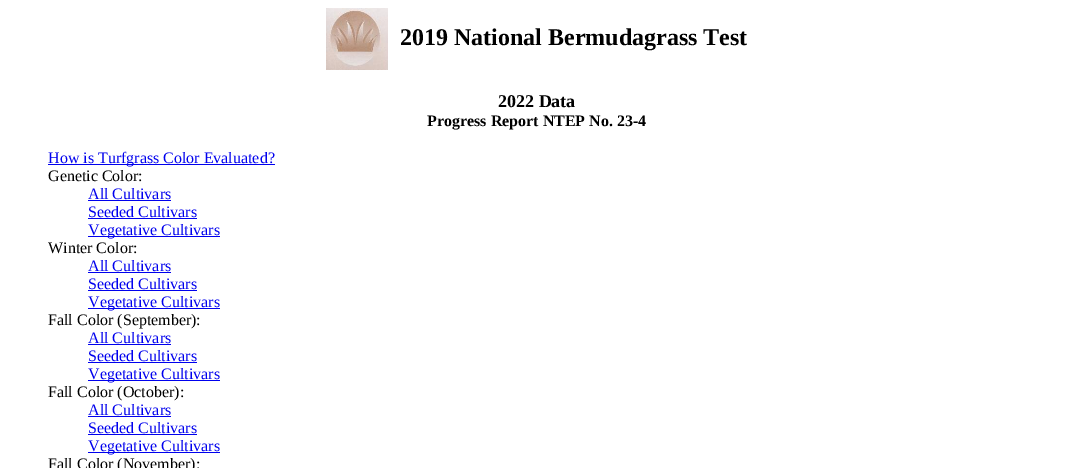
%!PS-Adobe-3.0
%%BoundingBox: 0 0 1074 468
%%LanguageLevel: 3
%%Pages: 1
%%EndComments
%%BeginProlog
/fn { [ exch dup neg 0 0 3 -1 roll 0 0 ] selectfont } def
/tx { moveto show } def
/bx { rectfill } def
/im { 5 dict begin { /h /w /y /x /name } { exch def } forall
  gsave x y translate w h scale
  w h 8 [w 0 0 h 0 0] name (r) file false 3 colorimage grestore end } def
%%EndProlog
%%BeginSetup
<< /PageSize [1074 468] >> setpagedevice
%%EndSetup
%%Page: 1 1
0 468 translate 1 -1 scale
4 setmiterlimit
1 setgray
0 0 1074 468 bx
(image0.raw) 326 8 62 62 im
/LiberationSerif-Bold 24 fn
0 setgray
(2019 National Bermudagrass Test) 400 45 tx
/LiberationSerif-Bold 18 fn
(2022 Data) 498 107 tx
/LiberationSerif-Bold 16 fn
(Progress Report NTEP No. 23-4) 427 126 tx
0 0 0.933 setrgbcolor
48 164 227 1 bx
/LiberationSerif-Regular 16 fn
(How is Turfgrass Color Evaluated?) 48 163 tx
0 setgray
(Genetic Color:) 48 181 tx
0 0 0.933 setrgbcolor
(All Cultivars) 88 199 tx
88 200 83 1 bx
(Seeded Cultivars) 88 217 tx
88 218 109 1 bx
88 236 132 1 bx
(Vegetative Cultivars) 88 235 tx
0 setgray
(Winter Color:) 48 253 tx
0 0 0.933 setrgbcolor
(All Cultivars) 88 271 tx
88 272 83 1 bx
(Seeded Cultivars) 88 289 tx
88 290 109 1 bx
88 308 132 1 bx
(Vegetative Cultivars) 88 307 tx
0 setgray
(Fall Color \(September\):) 48 325 tx
0 0 0.933 setrgbcolor
(All Cultivars) 88 343 tx
88 344 83 1 bx
(Seeded Cultivars) 88 361 tx
88 362 109 1 bx
88 380 132 1 bx
(Vegetative Cultivars) 88 379 tx
0 setgray
(Fall Color \(October\):) 48 397 tx
0 0 0.933 setrgbcolor
(All Cultivars) 88 415 tx
88 416 83 1 bx
(Seeded Cultivars) 88 433 tx
88 434 109 1 bx
88 452 132 1 bx
(Vegetative Cultivars) 88 451 tx
0 setgray
(Fall Color \(November\):) 48 469 tx
showpage
%%EOF
